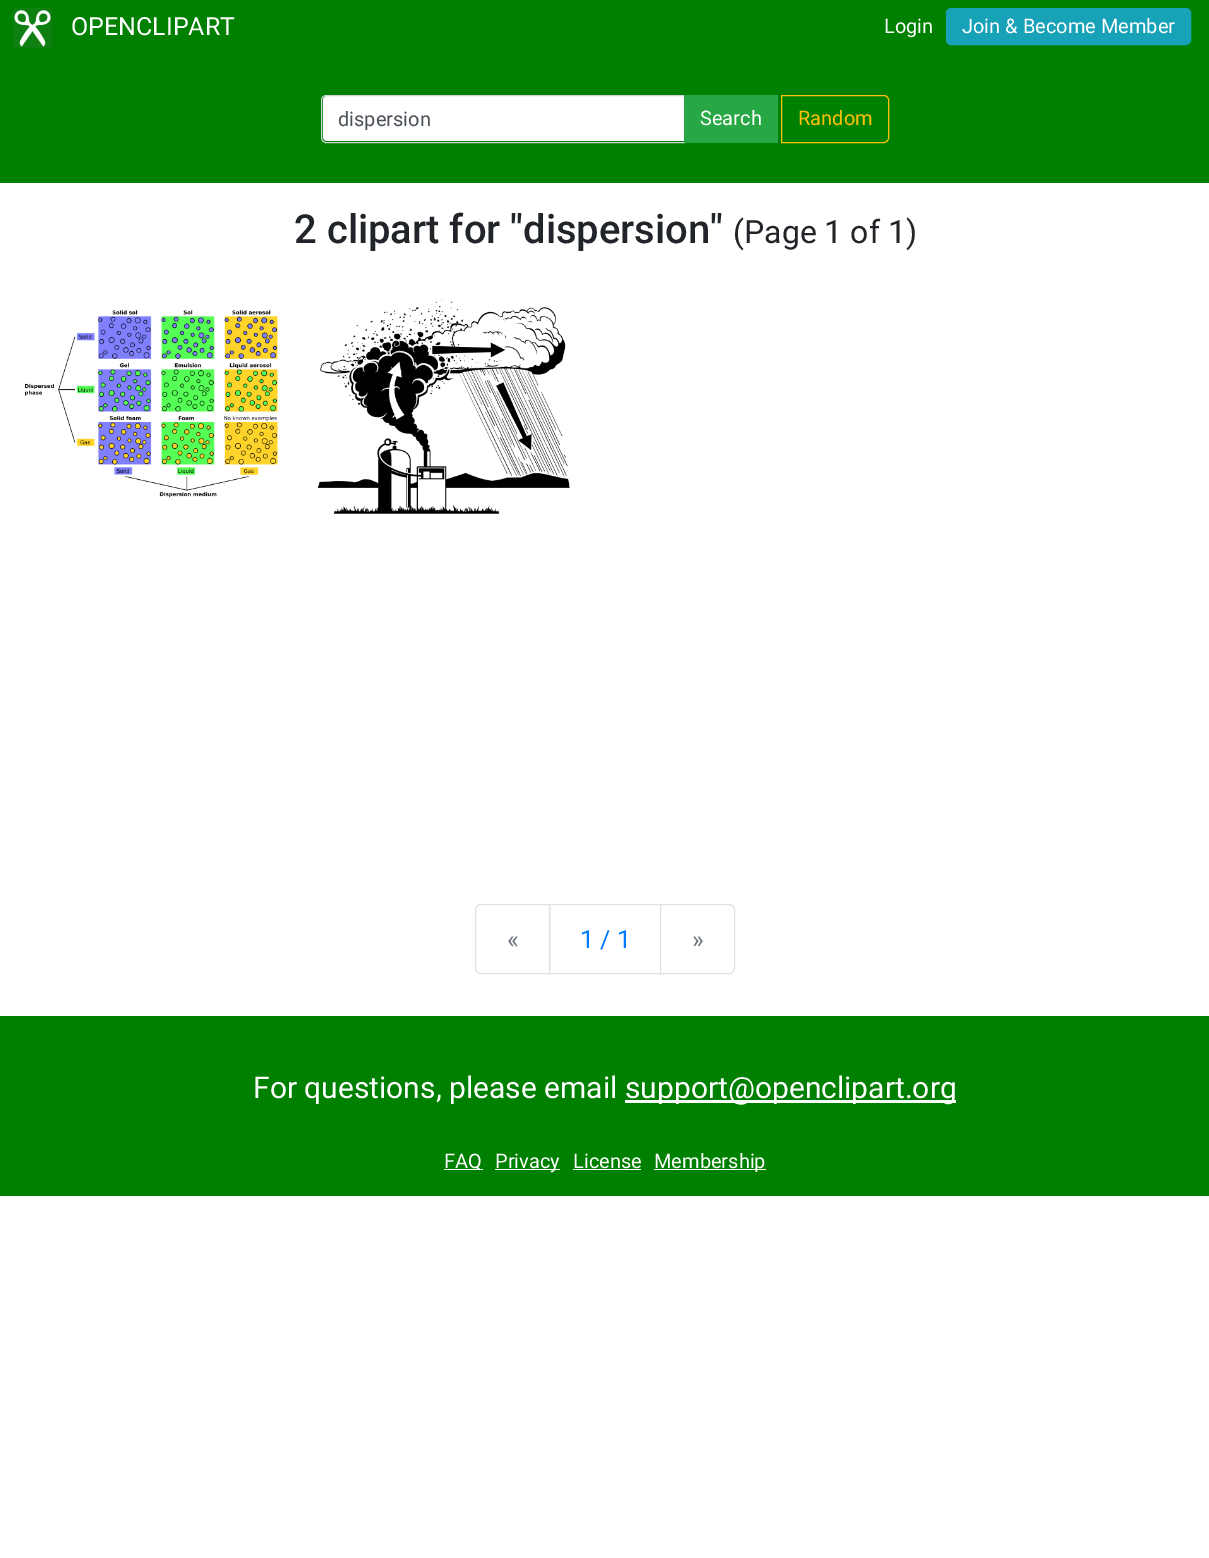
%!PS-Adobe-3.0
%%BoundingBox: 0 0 1209 1558
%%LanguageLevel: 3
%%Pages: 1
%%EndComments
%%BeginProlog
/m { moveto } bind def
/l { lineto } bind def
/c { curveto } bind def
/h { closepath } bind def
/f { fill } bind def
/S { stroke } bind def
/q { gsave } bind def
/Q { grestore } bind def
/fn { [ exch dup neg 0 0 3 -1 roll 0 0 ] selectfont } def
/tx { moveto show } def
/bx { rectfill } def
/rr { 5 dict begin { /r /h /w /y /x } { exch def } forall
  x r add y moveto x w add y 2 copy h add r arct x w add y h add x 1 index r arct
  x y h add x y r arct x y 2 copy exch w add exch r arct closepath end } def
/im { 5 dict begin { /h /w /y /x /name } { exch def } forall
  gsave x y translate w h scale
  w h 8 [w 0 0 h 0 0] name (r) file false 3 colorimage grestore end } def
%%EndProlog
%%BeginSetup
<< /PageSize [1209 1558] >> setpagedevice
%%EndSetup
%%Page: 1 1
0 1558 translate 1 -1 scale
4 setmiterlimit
1 setgray
0 0 1209 1558 bx
0 0.502 0 setrgbcolor
0 0 1209 183 bx
(image0.raw) 13 8 39 40 im
/Roboto-Regular 25 fn
1 setgray
(OPENCLIPART) 71 35 tx
/Roboto-Regular 20 fn
(Login) 884 33 tx
0.09 0.635 0.722 setrgbcolor
946.5 8.5 244 36 4.5 rr q f Q
S
1 setgray
(Join & Become Member) 962 33 tx
327 96 m 684 96 l 684 141 l 327 141 l 325 141 323 139 323 137 c 323 100 l 323 98 325 96 327 96 c h f
0.808 0.831 0.855 setrgbcolor
326 95.5 m 684.5 95.5 l 684.5 142.5 l 326 142.5 l 323.5 142.5 321.5 140.5 321.5 138 c 321.5 100 l 321.5 97.5 323.5 95.5 326 95.5 c h S
0.286 0.314 0.341 setrgbcolor
(dispersion) 338 126 tx
0.157 0.655 0.271 setrgbcolor
684 95 94 48 bx
1 setgray
(Search) 700 125 tx
1 0.757 0.027 setrgbcolor
781.5 95.5 m 884 95.5 l 886.5 95.5 888.5 97.5 888.5 100 c 888.5 138 l 888.5 140.5 886.5 142.5 884 142.5 c 781.5 142.5 l h S
(Random) 798 125 tx
/Roboto-Medium 40 fn
0.129 0.145 0.161 setrgbcolor
(2 clipart for "dispersion") 294 243 tx
/Roboto-Regular 32 fn
(\(Page 1 of 1\)) 733 243 tx
(image1.raw) 25 310 253 188 im
(image2.raw) 317 299 253 215 im
0.871 0.886 0.902 setrgbcolor
481 904.5 m 549.5 904.5 l 549.5 973.5 l 481 973.5 l 478 973.5 475.5 971 475.5 968 c 475.5 910 l 475.5 907 478 904.5 481 904.5 c h S
/Roboto-Regular 25 fn
0.424 0.459 0.49 setrgbcolor
(«) 507 948 tx
0.871 0.886 0.902 setrgbcolor
549.5 904.5 111 69 rectstroke
0 0.482 1 setrgbcolor
(1 / 1) 580 948 tx
1 setgray
660.5 904.5 m 729 904.5 l 732 904.5 734.5 907 734.5 910 c 734.5 968 l 734.5 971 732 973.5 729 973.5 c 660.5 973.5 l h q f Q
0.871 0.886 0.902 setrgbcolor
S
0.424 0.459 0.49 setrgbcolor
(») 692 948 tx
0 0.502 0 setrgbcolor
0 1016 1209 180 bx
/Roboto-Regular 30 fn
1 setgray
(For questions, please email) 253 1098 tx
625 1100 331 3 bx
(support@openclipart.org) 625 1098 tx
444 1169 39 1 bx
/Roboto-Regular 20 fn
(FAQ) 444 1168 tx
495 1169 65 1 bx
(Privacy) 495 1168 tx
(License) 573 1168 tx
573 1169 68 1 bx
654 1169 112 1 bx
(Membership) 654 1168 tx
showpage
%%EOF
